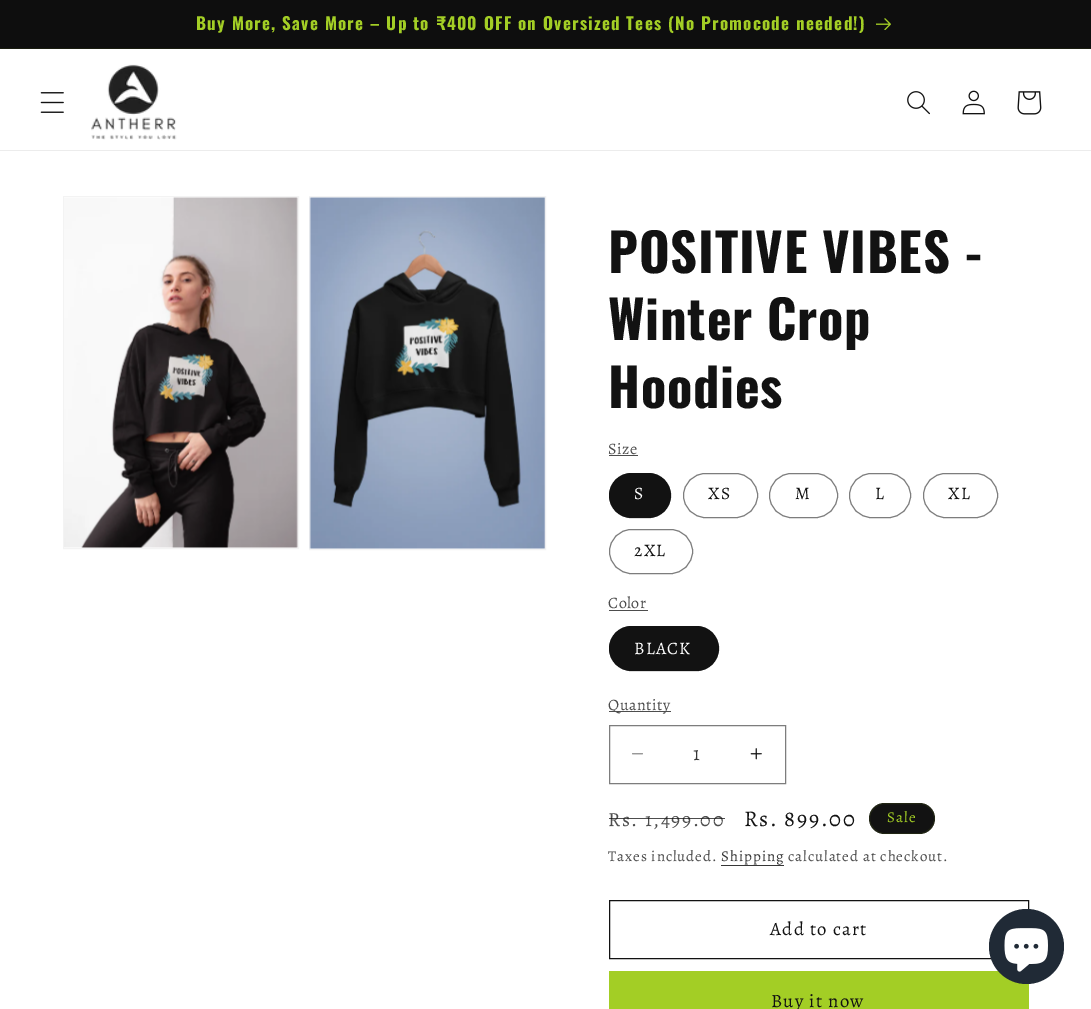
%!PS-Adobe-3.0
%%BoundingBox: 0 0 1091 1009
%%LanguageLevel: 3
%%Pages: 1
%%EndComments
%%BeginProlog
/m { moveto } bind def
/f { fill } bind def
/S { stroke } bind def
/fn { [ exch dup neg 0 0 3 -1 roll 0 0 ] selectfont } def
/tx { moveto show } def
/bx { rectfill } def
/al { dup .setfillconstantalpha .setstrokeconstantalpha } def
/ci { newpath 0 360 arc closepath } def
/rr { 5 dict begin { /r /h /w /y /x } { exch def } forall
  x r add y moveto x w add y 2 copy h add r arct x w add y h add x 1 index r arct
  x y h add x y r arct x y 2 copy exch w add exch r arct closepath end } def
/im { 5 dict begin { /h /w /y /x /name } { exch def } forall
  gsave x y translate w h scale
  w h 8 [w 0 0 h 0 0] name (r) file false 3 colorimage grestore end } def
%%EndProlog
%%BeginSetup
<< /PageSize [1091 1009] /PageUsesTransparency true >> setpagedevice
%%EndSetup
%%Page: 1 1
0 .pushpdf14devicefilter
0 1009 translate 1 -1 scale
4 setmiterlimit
1 setgray
0 0 1091 1009 bx
0.055 setgray
0 0 1091 48 bx
0.102 0.114 0.063 setrgbcolor
0 48 1091 1 bx
/Oswald-Bold 17.05 fn
0.639 0.808 0.145 setrgbcolor
196 30 m 1.25 0 (Buy More, Save More – Up to ₹400 OFF on Oversized Tees \(No Promocode needed!\)) ashow
(image0.raw) 876 18 15 12 im
0.925 setgray
0 150 1091 1 bx
(image1.raw) 40 92 24 21 im
(image2.raw) 91 64 86 76 im
(image3.raw) 907 91 23 24 im
(image4.raw) 962 90 23 25 im
(image5.raw) 1017 91 25 24 im
0.953 setgray
63.5 196.5 235 352 rectstroke
(image6.raw) 64 197 234 351 im
309.5 196.5 236 353 rectstroke
(image7.raw) 309 197 237 352 im
/Oswald-Bold 52.5 fn
0.071 setgray
608 273 m 0.75 0 (POSITIVE VIBES -) ashow
608 340 m 0.75 0 (Winter Crop) ashow
608 408 m 0.75 0 (Hoodies) ashow
/Alegreya-Regular 16 fn
0.302 setgray
608 454 m 0.5 0 (Size) ashow
609 455 29 1 bx
0.071 setgray
609 473 62 45 22.5 rr f
0.55 al
609.5 473.5 61 44 22 rr S
/Alegreya-Regular 17.5 fn
1 al
1 setgray
634 499 m 1.25 0 (S) ashow
0.49 setgray
683.5 473.5 74 44 22 rr S
0.071 setgray
708 499 m 1.25 0 (XS) ashow
0.49 setgray
769.5 473.5 68 44 22 rr S
0.071 setgray
795 499 m 1.25 0 (M) ashow
0.49 setgray
849.5 473.5 61 44 22 rr S
0.071 setgray
875 499 m 1.25 0 (L) ashow
0.49 setgray
923.5 473.5 74 44 22 rr S
0.071 setgray
948 499 m 1.25 0 (XL) ashow
0.49 setgray
609.5 529.5 83 44 22 rr S
0.071 setgray
634 556 m 1.25 0 (2XL) ashow
/Alegreya-Regular 16 fn
0.302 setgray
608 608 m 0.5 0 (Color) ashow
609 610 39 1 bx
0.071 setgray
609 626 110 45 22.5 rr f
0.55 al
609.5 626.5 109 44 22 rr S
/Alegreya-Regular 17.5 fn
1 al
1 setgray
634 654 m 1.25 0 (BLACK) ashow
0.302 setgray
609 711 62 1 bx
/Alegreya-Regular 16 fn
608 710 m 0.5 0 (Quantity) ashow
(image8.raw) 632 753 11 2 im
(image9.raw) 750 748 12 12 im
0.49 setgray
609.5 725.5 176 58 rectstroke
/Alegreya-Regular 20 fn
0.212 setgray
(1) 693 760 tx
0.302 setgray
608 826 m 1.6 0 (Rs. 1,499.00) ashow
0.75 al
0.071 setgray
609 818 116 1 bx
/Alegreya-Regular 22.5 fn
1 al
744 826 m 1.6 0 (Rs. 899.00) ashow
869 803 66 31 15.5 rr f
0.1 al
0.639 0.808 0.145 setrgbcolor
869.5 803.5 65 30 15 rr S
/Alegreya-Regular 15 fn
1 al
887 822 m 1.25 0 (Sale) ashow
0.302 setgray
608 861 m 0.9 0 (Taxes included.) ashow
0.212 setgray
721 861 m 0.9 0 (Shipping) ashow
721 865 63 1 bx
0.302 setgray
788 861 m 0.9 0 (calculated at checkout.) ashow
0.071 setgray
609.5 900.5 419 58 rectstroke
/Alegreya-Regular 18.75 fn
770 935 m 1.25 0 (Add to cart) ashow
0.639 0.808 0.145 setrgbcolor
609 971 420 38 bx
0.071 setgray
771 1007 m 1.25 0 (Buy it now) ashow
0.125 0.165 0.212 setrgbcolor
1026.5 946.5 37.5 ci f
(image10.raw) 1004 928 44 44 im
.poppdf14devicefilter showpage
%%EOF
